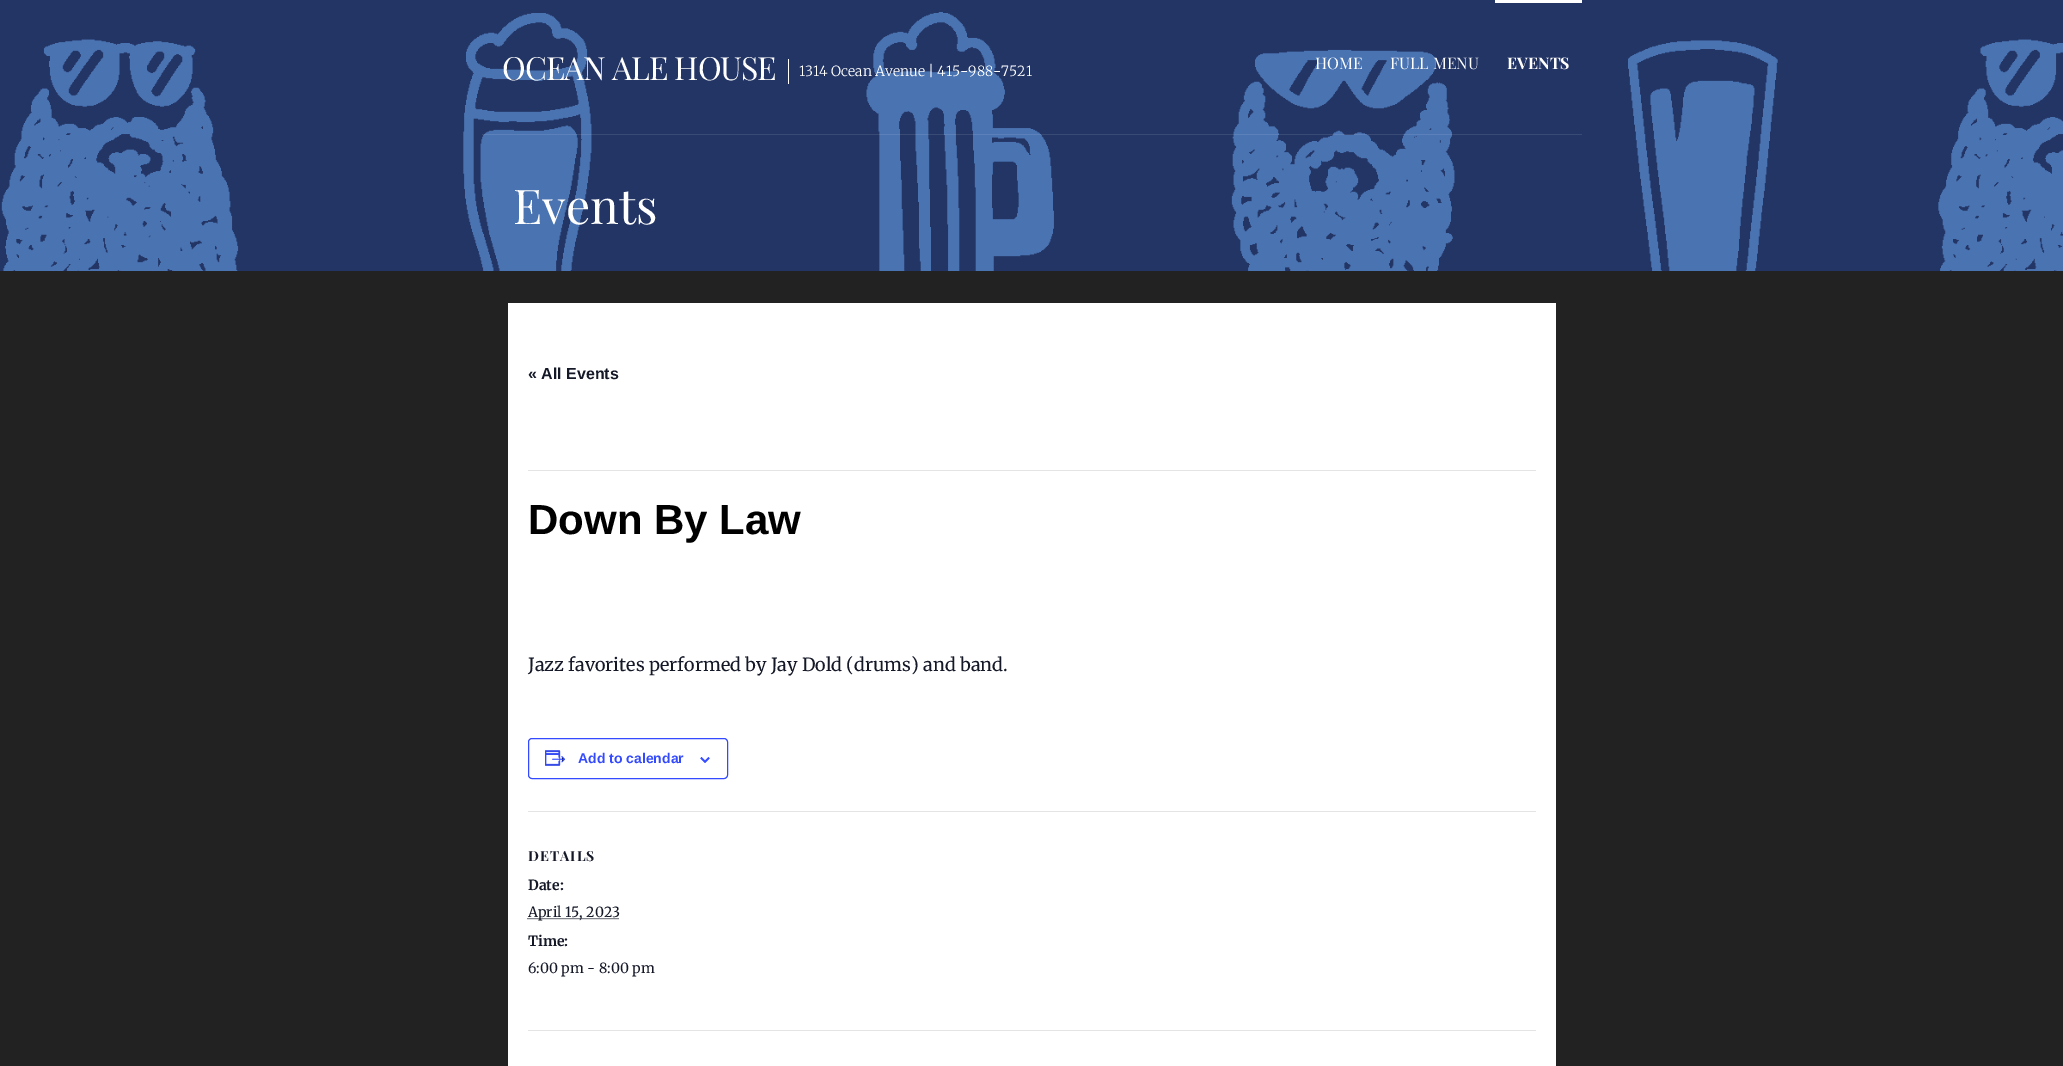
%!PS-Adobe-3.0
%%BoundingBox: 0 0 2063 1066
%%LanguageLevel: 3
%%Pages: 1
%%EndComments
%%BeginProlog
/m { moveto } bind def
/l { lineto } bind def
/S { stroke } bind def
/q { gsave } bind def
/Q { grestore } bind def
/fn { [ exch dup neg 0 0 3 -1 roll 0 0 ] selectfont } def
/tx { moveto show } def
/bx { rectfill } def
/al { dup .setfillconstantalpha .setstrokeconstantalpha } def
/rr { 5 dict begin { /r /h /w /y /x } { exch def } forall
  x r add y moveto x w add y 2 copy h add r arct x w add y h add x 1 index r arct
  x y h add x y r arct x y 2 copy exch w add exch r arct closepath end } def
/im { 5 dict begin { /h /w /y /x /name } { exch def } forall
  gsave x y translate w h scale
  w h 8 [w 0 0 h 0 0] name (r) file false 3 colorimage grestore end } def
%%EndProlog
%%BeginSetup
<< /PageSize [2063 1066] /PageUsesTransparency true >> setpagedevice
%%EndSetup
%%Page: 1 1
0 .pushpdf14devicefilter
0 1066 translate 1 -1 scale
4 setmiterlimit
0.133 setgray
0 0 2063 1066 bx
(image0.raw) 0 0 2063 271 im
0.1 al
1 setgray
482 134 1100 1 bx
/PlayfairDisplay-Regular 32 fn
1 al
502 80 m -1 0 (OCEAN ALE HOUSE) ashow
788 59 1 25 bx
/Merriweather-Light 14 fn
(1314 Ocean Avenue | 415-988-7521) 799 76 tx
/PlayfairDisplay-Regular 16 fn
(HOME) 1315 69 tx
(FULL MENU) 1390 69 tx
1495 0 87 3 bx
/PlayfairDisplay-Bold 16 fn
(EVENTS) 1507 69 tx
/PlayfairDisplay-Regular 48 fn
(Events) 513 224 tx
508 303 1048 763 bx
/LiberationSans-Bold 16 fn
0.078 0.094 0.153 setrgbcolor
(« All Events) 528 379 tx
0.894 setgray
528 470 1008 1 bx
/LiberationSans-Bold 42 fn
0 setgray
(Down By Law) 528 534 tx
/Merriweather-Regular 18 fn
0.078 0.094 0.153 setrgbcolor
(Jazz favorites performed by Jay Dold \(drums\) and band.) 528 671 tx
0.2 0.29 1 setrgbcolor
528.5 738.5 199 40 3.5 rr S
(image1.raw) 545 750 21 16 im
/LiberationSans-Bold 14 fn
(Add to calendar) 578 763 tx
(image2.raw) 700 757 10 6 im
0.894 setgray
528 811 1008 1 bx
/PlayfairDisplay-Bold 14 fn
0.078 0.094 0.153 setrgbcolor
528 861 m 1 0 (DETAILS) ashow
/Merriweather-Bold 14 fn
(Date:) 528 890 tx
[1 1] 0 setdash
527.5 918.5 m 619.5 918.5 l S
/Merriweather-Regular 14 fn
(April 15, 2023) 528 917 tx
q
528 633 1008 368 rectclip
/Merriweather-Bold 14 fn
(Time:) 528 946 tx
Q
(6:00 pm - 8:00 pm) 528 973 tx
0.894 setgray
528 1030 1008 1 bx
.poppdf14devicefilter showpage
%%EOF
